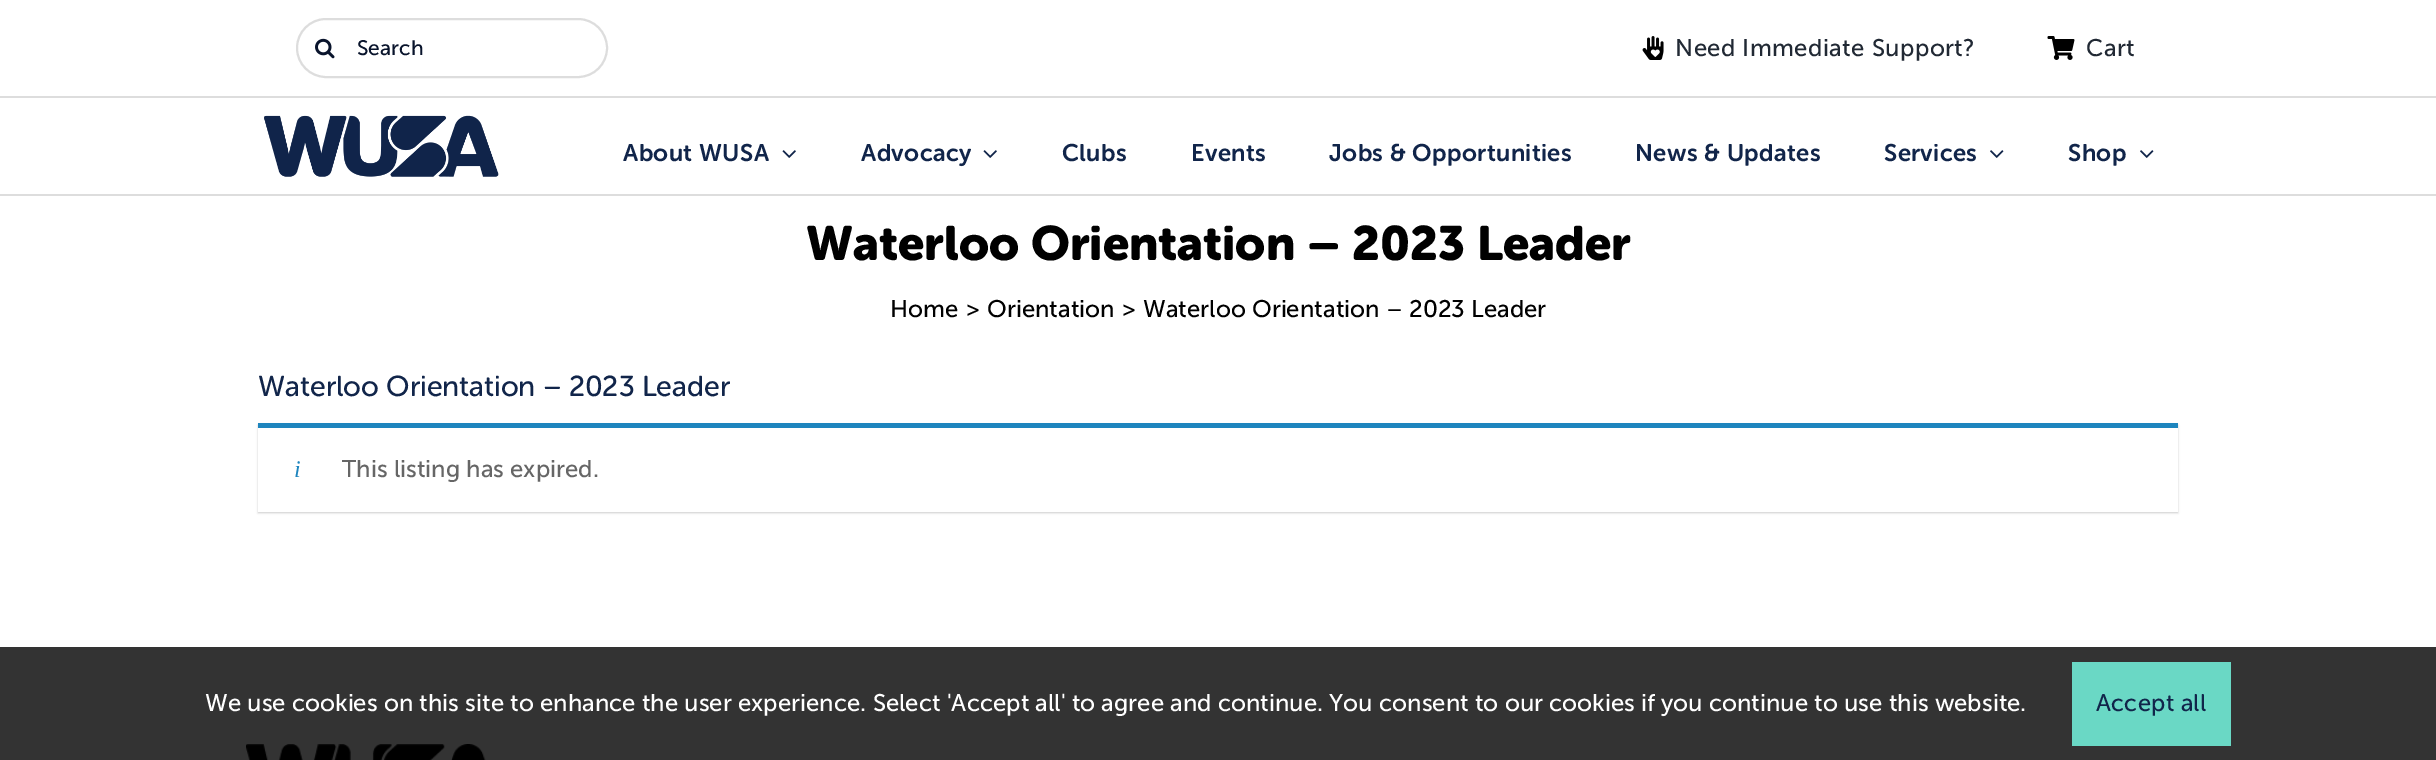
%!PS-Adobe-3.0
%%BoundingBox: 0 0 2436 760
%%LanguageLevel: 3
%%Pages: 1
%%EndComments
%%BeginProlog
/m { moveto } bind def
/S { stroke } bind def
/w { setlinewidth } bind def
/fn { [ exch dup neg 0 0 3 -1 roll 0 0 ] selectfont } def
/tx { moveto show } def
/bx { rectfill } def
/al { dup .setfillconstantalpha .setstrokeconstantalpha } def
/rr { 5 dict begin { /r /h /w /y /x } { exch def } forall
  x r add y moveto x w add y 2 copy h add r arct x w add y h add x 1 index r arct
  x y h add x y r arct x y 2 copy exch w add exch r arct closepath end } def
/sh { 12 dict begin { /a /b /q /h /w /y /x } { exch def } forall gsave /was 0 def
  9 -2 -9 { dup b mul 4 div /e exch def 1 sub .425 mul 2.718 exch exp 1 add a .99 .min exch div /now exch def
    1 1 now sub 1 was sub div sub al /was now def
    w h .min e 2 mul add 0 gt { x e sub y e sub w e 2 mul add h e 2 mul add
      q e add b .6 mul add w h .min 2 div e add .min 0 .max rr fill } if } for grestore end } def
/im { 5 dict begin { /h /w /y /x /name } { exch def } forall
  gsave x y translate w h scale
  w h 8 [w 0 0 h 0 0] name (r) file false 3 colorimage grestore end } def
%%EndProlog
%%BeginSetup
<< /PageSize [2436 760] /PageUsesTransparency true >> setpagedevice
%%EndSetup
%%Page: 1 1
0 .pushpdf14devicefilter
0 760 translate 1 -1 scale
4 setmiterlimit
1 setgray
0 0 2436 760 bx
0.2 setgray
0 647 2436 113 bx
0.867 setgray
2 w
297 19 310 58 29 rr S
(image0.raw) 315 38 20 21 im
/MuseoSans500-Regular 21 fn
0.035 0.078 0.173 setrgbcolor
(Search) 357 55 tx
(image1.raw) 1642 36 22 24 im
/MuseoSans500-Regular 24 fn
0.129 0.161 0.204 setrgbcolor
1675 56 m 0.4 0 (Need Immediate Support?) ashow
(image2.raw) 2047 36 28 24 im
2086 56 m 0.4 0 (Cart) ashow
0.867 setgray
0 96 2436 2 bx
0 194 2436 2 bx
(image3.raw) 264 115 235 62 im
/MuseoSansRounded-SemiBold 24 fn
0.067 0.145 0.29 setrgbcolor
623 161 m 0.4 0 (About WUSA) ashow
(image4.raw) 782 150 14 8 im
861 161 m 0.4 0 (Advocacy) ashow
(image4.raw) 983 150 14 8 im
1062 161 m 0.4 0 (Clubs) ashow
1191 161 m 0.4 0 (Events) ashow
1329 161 m 0.4 0 (Jobs & Opportunities) ashow
1635 161 m 0.4 0 (News & Updates) ashow
1884 161 m 0.4 0 (Services) ashow
(image5.raw) 1990 150 14 8 im
2068 161 m 0.4 0 (Shop) ashow
(image5.raw) 2140 150 14 8 im
/MuseoSansRounded-Bold 48 fn
0 setgray
(Waterloo Orientation – 2023 Leader) 806 260 tx
/MuseoSans500-Regular 24 fn
(Home) 890 317 tx
(>) 966 317 tx
(Orientation) 987 317 tx
(>) 1122 317 tx
(Waterloo Orientation – 2023 Leader) 1143 317 tx
/MuseoSansRounded-Regular 28.75 fn
0.067 0.145 0.29 setrgbcolor
(Waterloo Orientation – 2023 Leader) 258 396 tx
0 setgray
258 425 1920 88 0 1 0.2 sh
1 setgray
258 428 1920 84 bx
0.118 0.522 0.745 setrgbcolor
258 423 1920 5 bx
/LiberationSerif-Italic 24 fn
(i) 294 477 tx
/MuseoSans500-Regular 24 fn
0.4 setgray
(This listing has expired.) 342 477 tx
(image6.raw) 246 744 240 16 im
1 setgray
(We use cookies on this site to enhance the user experience. Select 'Accept all' to agree and continue. You consent to our cookies if you continue to use this website.) 205 711 tx
0.416 0.847 0.773 setrgbcolor
2072 662 159 84 bx
/MuseoSansRounded-Regular 24 fn
0.067 0.145 0.29 setrgbcolor
2096 711 m 0.4 0 (Accept all) ashow
.poppdf14devicefilter showpage
%%EOF
